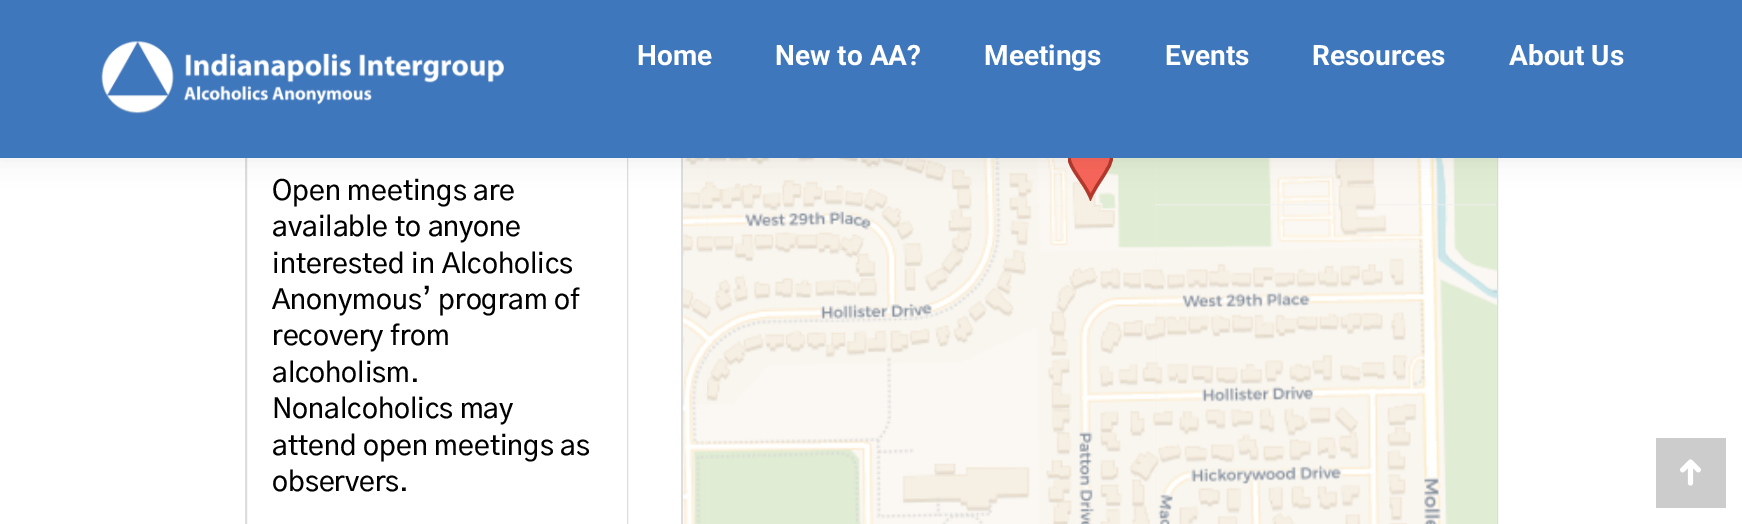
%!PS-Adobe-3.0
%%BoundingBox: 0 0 1742 524
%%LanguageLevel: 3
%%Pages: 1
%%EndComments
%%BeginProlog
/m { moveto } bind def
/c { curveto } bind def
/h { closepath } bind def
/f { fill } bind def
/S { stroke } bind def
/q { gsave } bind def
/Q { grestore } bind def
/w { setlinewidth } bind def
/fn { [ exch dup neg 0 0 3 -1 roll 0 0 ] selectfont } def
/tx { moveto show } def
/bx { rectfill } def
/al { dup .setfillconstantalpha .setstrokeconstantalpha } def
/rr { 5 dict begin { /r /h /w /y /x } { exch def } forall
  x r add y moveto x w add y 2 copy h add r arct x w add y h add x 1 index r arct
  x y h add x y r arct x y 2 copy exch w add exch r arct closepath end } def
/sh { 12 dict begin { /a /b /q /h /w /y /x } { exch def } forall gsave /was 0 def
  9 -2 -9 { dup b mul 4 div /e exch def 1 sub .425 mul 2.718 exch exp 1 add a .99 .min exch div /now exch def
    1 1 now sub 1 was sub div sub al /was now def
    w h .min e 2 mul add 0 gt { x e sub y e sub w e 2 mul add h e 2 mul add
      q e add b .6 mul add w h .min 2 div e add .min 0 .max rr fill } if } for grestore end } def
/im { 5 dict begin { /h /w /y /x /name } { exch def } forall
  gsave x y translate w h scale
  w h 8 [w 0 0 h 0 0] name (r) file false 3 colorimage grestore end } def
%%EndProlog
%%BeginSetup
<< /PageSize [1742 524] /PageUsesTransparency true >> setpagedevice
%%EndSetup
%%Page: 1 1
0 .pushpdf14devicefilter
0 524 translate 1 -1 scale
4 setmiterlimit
1 setgray
0 0 1742 524 bx
0.867 setgray
2 w
246 -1 381 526 rectstroke
1 setgray
626 158 1 366 bx
0.933 setgray
683 158 813 366 bx
0.867 setgray
682 -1 815 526 rectstroke
(image2.raw) 706 158 449 47 im
0.969 0.392 0.345 setrgbcolor
1090 137 m 1102 137 1111 146 1111 157 c 1111 168 1099 180 1090 198 c 1084 182 1069 168 1069 157 c 1069 146 1079 137 1090 137 c h f
q
1068 135 45 66 rectclip
0.702 0.22 0.173 setrgbcolor
3.2 w
1090.5 136.5 m 1102 136.5 1111.5 145.5 1111.5 157 c 1111.5 168 1098.5 180 1090.5 197.5 c 1084.5 182.5 1069 168 1069 157 c 1069 145.5 1078.5 136.5 1090.5 136.5 c h S
Q
(image1.raw) 683 158 24 46 im
(image3.raw) 1155 158 342 46 im
0 setgray
-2 -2 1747 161 0 13 0.07 sh
0.247 0.467 0.737 setrgbcolor
0 0 1742 158 bx
(image0.raw) 101 41 403 73 im
/Roboto-Bold 28 fn
1 setgray
(Home) 637 65 tx
(New to AA?) 775 65 tx
(Meetings) 984 65 tx
(Events) 1165 65 tx
(Resources) 1312 65 tx
(About Us) 1509 65 tx
/GothicA1-Medium 28 fn
0 setgray
(Open meetings are) 272 200 tx
(available to anyone) 272 236 tx
(interested in Alcoholics) 272 273 tx
(Anonymous’ program of) 272 309 tx
(recovery from) 272 345 tx
(alcoholism.) 272 382 tx
(Nonalcoholics may) 272 418 tx
(attend open meetings as) 272 455 tx
(observers.) 272 491 tx
(image5.raw) 706 204 449 320 im
(image4.raw) 683 204 24 320 im
(image6.raw) 1154 204 343 320 im
0.8 setgray
1656 438 70 70 bx
(image7.raw) 1680 459 21 27 im
.poppdf14devicefilter showpage
%%EOF
